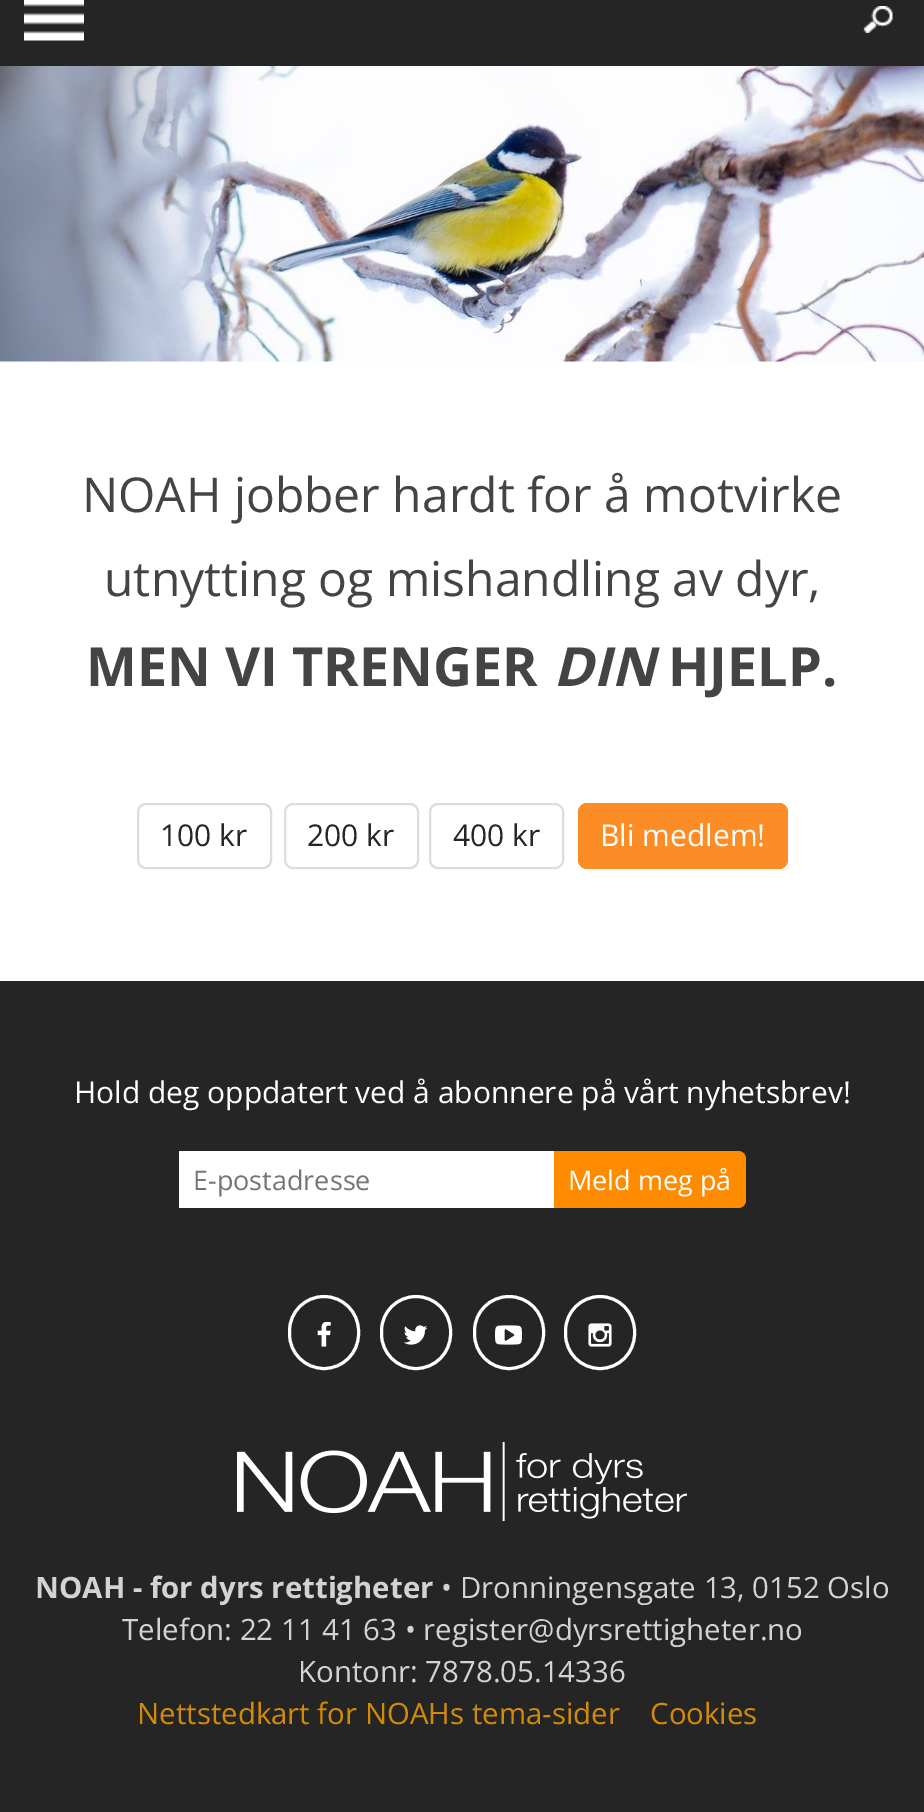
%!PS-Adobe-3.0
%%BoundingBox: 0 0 924 1812
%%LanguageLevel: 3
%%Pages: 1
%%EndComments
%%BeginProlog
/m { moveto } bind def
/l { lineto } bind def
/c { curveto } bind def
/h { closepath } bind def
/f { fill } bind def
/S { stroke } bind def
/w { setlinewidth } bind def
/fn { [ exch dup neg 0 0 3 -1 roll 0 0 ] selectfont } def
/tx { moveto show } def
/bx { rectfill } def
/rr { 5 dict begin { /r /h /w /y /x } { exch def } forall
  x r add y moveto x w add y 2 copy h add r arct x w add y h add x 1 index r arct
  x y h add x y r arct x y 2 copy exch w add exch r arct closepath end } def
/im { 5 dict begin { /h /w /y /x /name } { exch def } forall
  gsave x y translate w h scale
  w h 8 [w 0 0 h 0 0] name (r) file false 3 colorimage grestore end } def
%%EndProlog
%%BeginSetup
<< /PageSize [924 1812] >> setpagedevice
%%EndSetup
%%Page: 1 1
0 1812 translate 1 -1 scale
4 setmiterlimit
1 setgray
0 0 924 1812 bx
0.145 setgray
0 0 924 66 bx
(image0.raw) 24 0 60 41 im
(image1.raw) 863 6 30 27 im
(image2.raw) 0 66 924 296 im
/OpenSans-Regular 48 fn
0.267 setgray
(NOAH jobber hardt for å motvirke) 82 512 tx
(utnytting og mishandling av dyr,) 104 596 tx
/OpenSans-Bold 54 fn
(MEN VI TRENGER) 86 686 tx
/OpenSans-BoldItalic 54 fn
(DIN) 553 686 tx
/OpenSans-Bold 54 fn
(HJELP.) 668 686 tx
0.867 setgray
2 w
138 804 133 64 8 rr S
/OpenSans-Regular 30 fn
0.145 setgray
(100 kr) 160 846 tx
0.867 setgray
285 804 133 64 8 rr S
0.145 setgray
(200 kr) 307 846 tx
0.867 setgray
430 804 133 64 8 rr S
0.145 setgray
(400 kr) 453 846 tx
0.988 0.549 0.145 setrgbcolor
578 803 210 66 9 rr f
1 setgray
(Bli medlem!) 600 846 tx
0.145 setgray
0 981 924 831 bx
1 setgray
(Hold deg oppdatert ved å abonnere på vårt nyhetsbrev!) 74 1103 tx
179 1151 375 57 bx
/OpenSans-Regular 27 fn
0.459 setgray
(E-postadresse) 193 1190 tx
1 0.549 0 setrgbcolor
554 1151 m 738 1151 l 742.5 1151 746 1154.5 746 1159 c 746 1200 l 746 1204.5 742.5 1208 738 1208 c 554 1208 l h f
1 setgray
(Meld meg på) 568 1190 tx
3 w
289.5 1296.5 69 72 34.5 rr S
(image3.raw) 317 1322 14 25 im
381.5 1296.5 69 72 34.5 rr S
(image4.raw) 403 1325 25 20 im
474.5 1296.5 69 72 34.5 rr S
(image5.raw) 495 1325 27 20 im
565.5 1296.5 69 72 34.5 rr S
(image6.raw) 588 1323 24 24 im
(image7.raw) 237 1442 450 79 im
/OpenSans-Bold 29.4 fn
0.827 setgray
(NOAH - for dyrs rettigheter) 35 1598 tx
/OpenSans-Regular 29.4 fn
(• Dronningensgate 13, 0152 Oslo) 441 1598 tx
(Telefon: 22 11 41 63 • register@dyrsrettigheter.no) 122 1640 tx
(Kontonr: 7878.05.14336) 298 1682 tx
0.827 0.545 0.027 setrgbcolor
(Nettstedkart for NOAHs tema-sider) 137 1724 tx
(Cookies) 650 1724 tx
showpage
%%EOF
